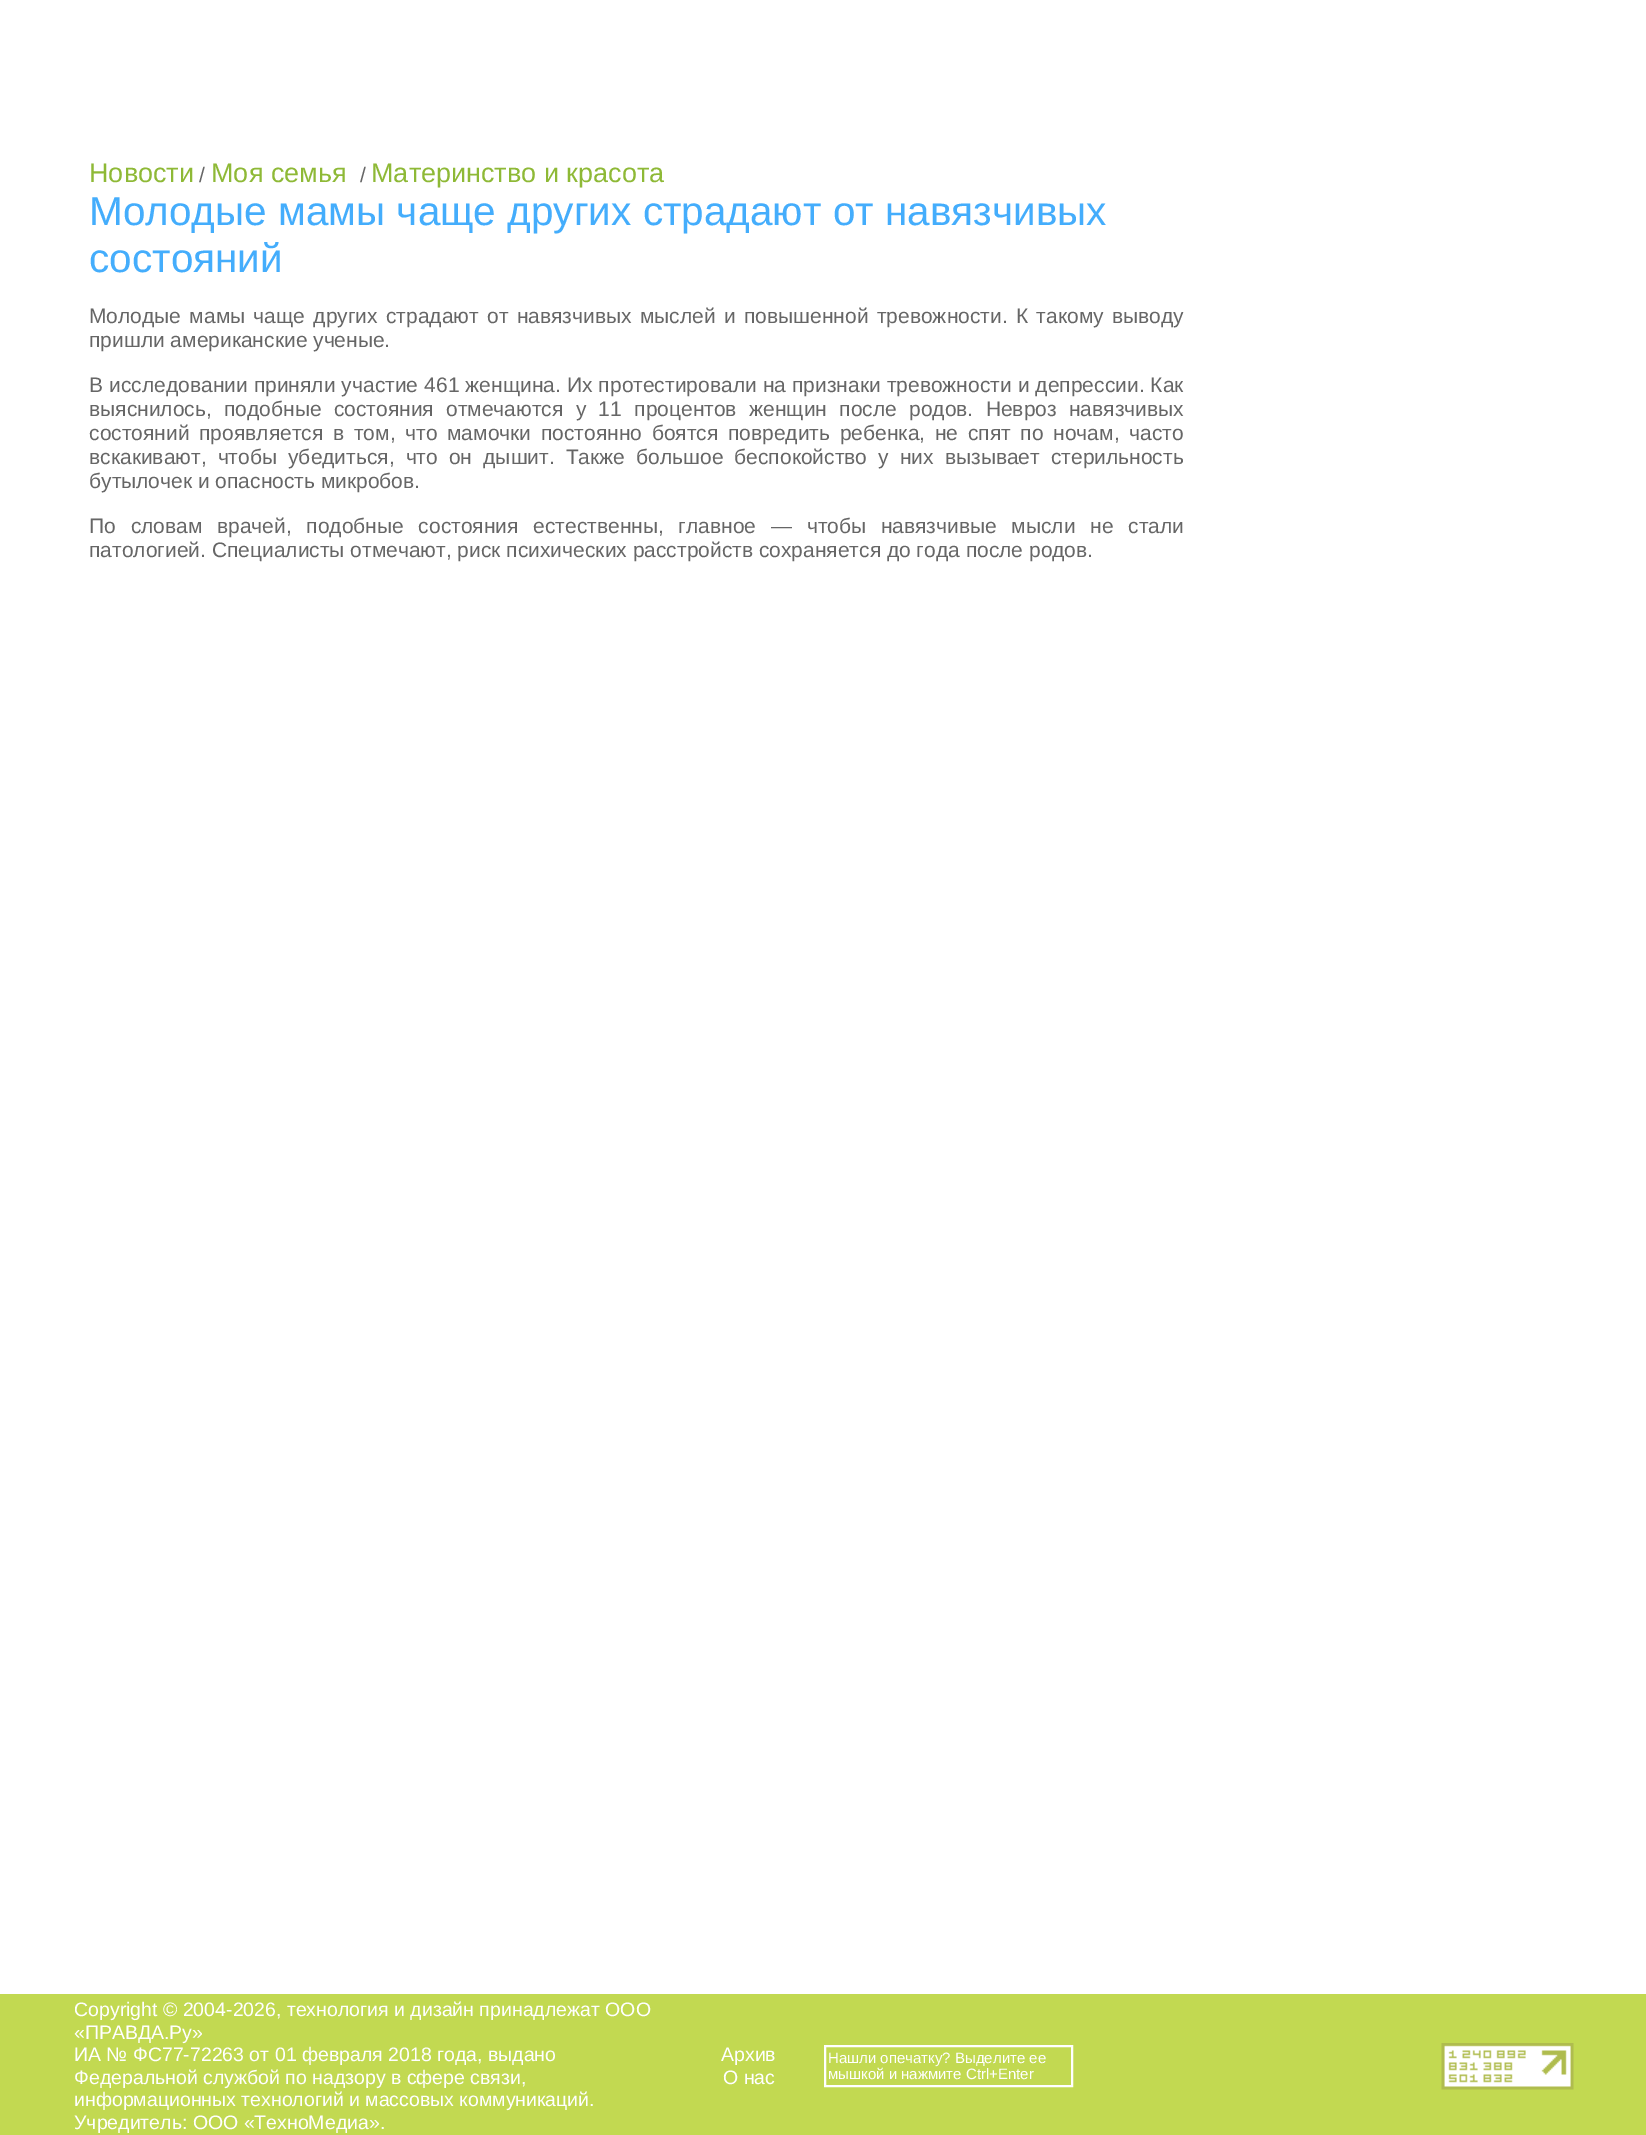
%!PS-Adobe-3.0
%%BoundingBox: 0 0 1646 2135
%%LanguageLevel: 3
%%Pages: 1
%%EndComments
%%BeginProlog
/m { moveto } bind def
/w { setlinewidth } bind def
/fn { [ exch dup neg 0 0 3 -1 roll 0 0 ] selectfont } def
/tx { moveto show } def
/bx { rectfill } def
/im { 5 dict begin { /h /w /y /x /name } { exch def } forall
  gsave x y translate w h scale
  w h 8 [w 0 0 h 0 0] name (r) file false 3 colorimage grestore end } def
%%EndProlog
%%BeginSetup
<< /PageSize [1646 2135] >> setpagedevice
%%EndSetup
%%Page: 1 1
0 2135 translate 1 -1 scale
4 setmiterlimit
1 setgray
0 0 1646 2135 bx
/LiberationSans-Regular 27 fn
0.557 0.725 0.212 setrgbcolor
(Новости) 89 182 tx
/LiberationSans-Regular 21 fn
0.4 setgray
(/) 199 182 tx
/LiberationSans-Regular 27 fn
0.557 0.725 0.212 setrgbcolor
(Моя семья) 211 182 tx
/LiberationSans-Regular 21 fn
0.4 setgray
(/) 360 182 tx
/LiberationSans-Regular 27 fn
0.557 0.725 0.212 setrgbcolor
(Материнство и красота) 371 182 tx
/LiberationSans-Regular 40.5 fn
0.267 0.678 0.988 setrgbcolor
(Молодые мамы чаще других страдают от навязчивых) 89 225 tx
(состояний) 89 272 tx
/LiberationSans-Regular 21 fn
0.4 setgray
89 323 m 2.5 0 32 (Молодые мамы чаще других страдают от навязчивых мыслей и повышенной тревожности. К такому выводу) widthshow
(пришли американские ученые.) 89 347 tx
89 392 m 0.25 0 32 (В исследовании приняли участие 461 женщина. Их протестировали на признаки тревожности и депрессии. Как) widthshow
89 416 m 6.5 0 32 (выяснилось, подобные состояния отмечаются у 11 процентов женщин после родов. Невроз навязчивых) widthshow
89 440 m 3.9 0 32 (состояний проявляется в том, что мамочки постоянно боятся повредить ребенка, не спят по ночам, часто) widthshow
89 464 m 5.25 0 32 (вскакивают, чтобы убедиться, что он дышит. Также большое беспокойство у них вызывает стерильность) widthshow
(бутылочек и опасность микробов.) 89 488 tx
89 533 m 8.9 0 32 (По словам врачей, подобные состояния естественны, главное — чтобы навязчивые мысли не стали) widthshow
(патологией. Специалисты отмечают, риск психических расстройств сохраняется до года после родов.) 89 557 tx
0.761 0.851 0.318 setrgbcolor
0 1994 1646 141 bx
/LiberationSans-Regular 19.5 fn
1 setgray
(Copyright © 2004-2026, технология и дизайн принадлежат ООО) 74 2016 tx
(«ПРАВДА.Ру») 74 2039 tx
(ИА № ФС77-72263 от 01 февраля 2018 года, выдано) 74 2061 tx
(Федеральной службой по надзору в сфере связи,) 74 2084 tx
(информационных технологий и массовых коммуникаций.) 74 2106 tx
(Учредитель: ООО «ТехноМедиа».) 74 2129 tx
(Архив) 721 2061 tx
(О нас) 723 2084 tx
2 w
825 2046 247 40 rectstroke
/LiberationSans-Regular 15 fn
(Нашли опечатку? Выделите ее) 828 2063 tx
(мышкой и нажмите Ctrl+Enter) 828 2079 tx
(image0.raw) 1441 2043 133 47 im
showpage
%%EOF
